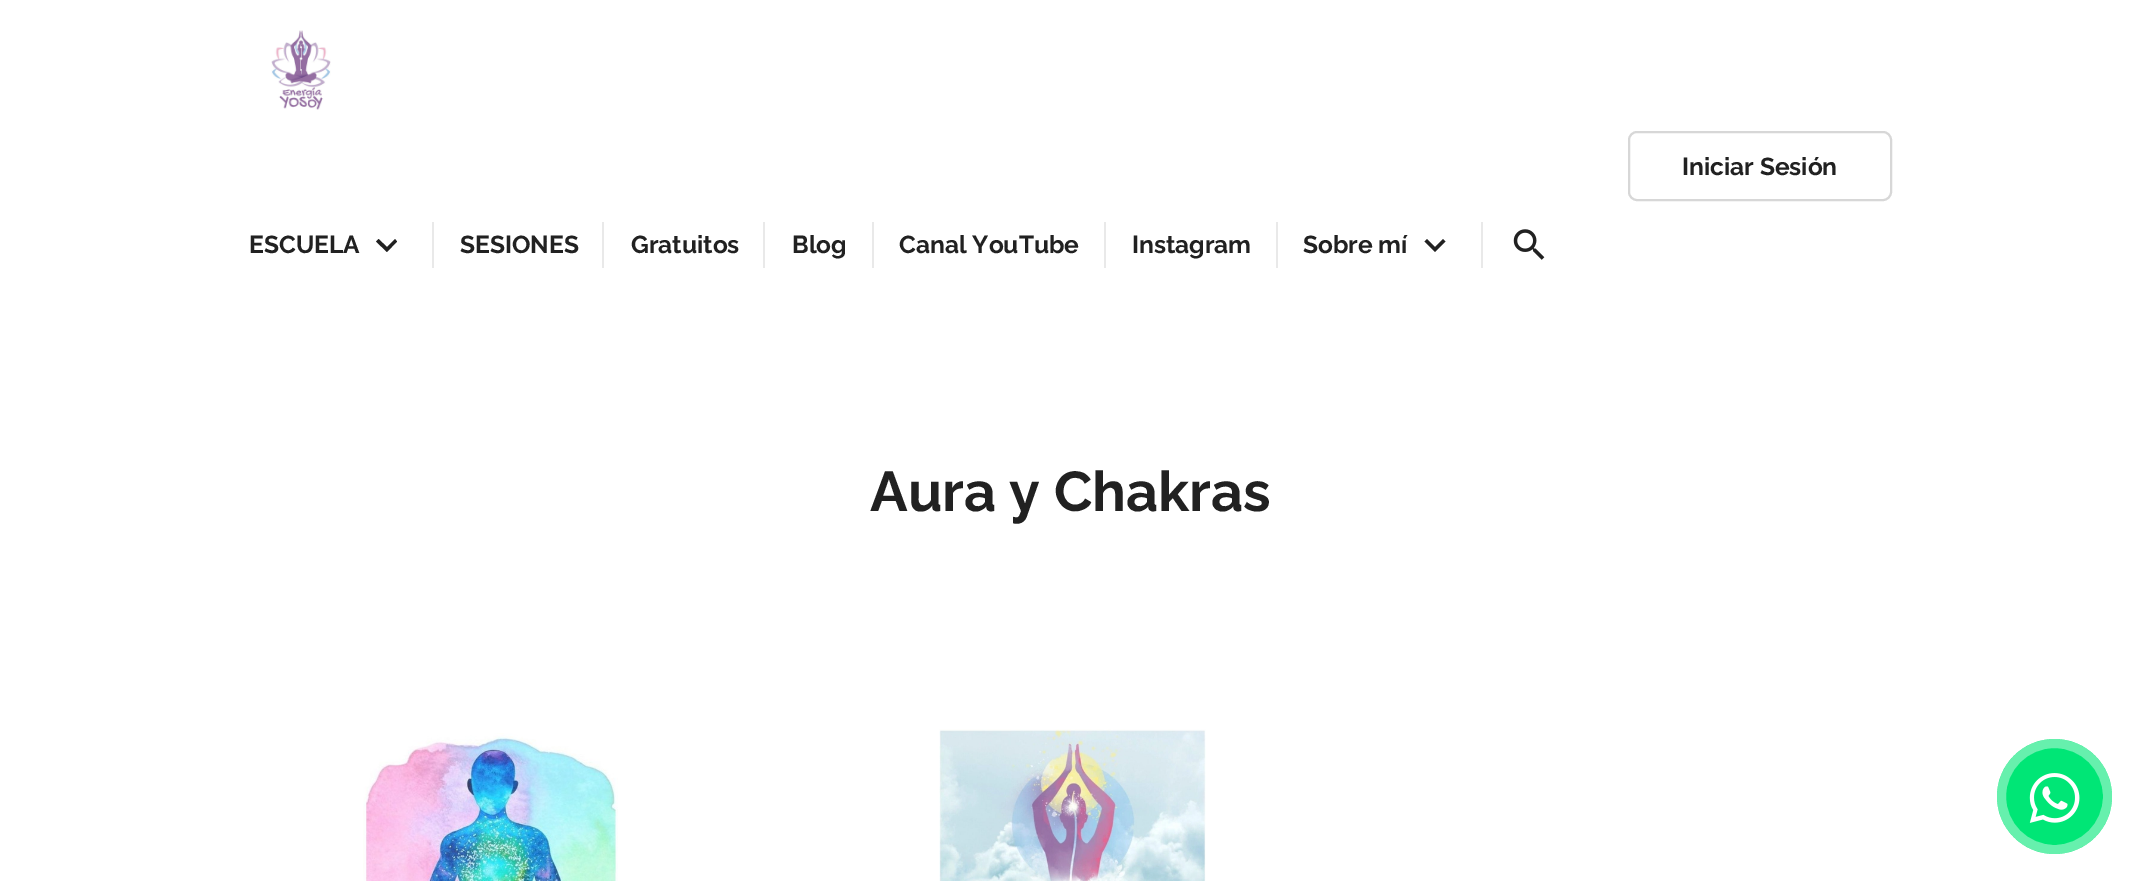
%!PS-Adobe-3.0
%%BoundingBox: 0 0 2139 881
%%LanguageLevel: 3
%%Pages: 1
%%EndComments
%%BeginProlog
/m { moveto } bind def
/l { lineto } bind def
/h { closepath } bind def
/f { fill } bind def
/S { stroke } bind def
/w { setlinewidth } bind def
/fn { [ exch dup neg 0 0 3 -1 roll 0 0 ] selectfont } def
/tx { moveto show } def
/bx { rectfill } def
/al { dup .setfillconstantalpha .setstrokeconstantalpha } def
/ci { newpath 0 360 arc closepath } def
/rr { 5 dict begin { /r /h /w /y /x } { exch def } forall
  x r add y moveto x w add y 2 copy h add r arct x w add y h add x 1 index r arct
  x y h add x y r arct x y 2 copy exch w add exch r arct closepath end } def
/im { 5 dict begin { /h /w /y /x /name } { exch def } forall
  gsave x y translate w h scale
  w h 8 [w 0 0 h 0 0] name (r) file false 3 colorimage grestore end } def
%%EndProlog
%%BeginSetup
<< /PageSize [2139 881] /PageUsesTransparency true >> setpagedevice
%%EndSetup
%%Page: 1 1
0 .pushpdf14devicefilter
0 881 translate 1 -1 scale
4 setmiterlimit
1 setgray
0 0 2139 881 bx
0.843 setgray
2 w
1629 132 262 68 8 rr S
/Raleway-Bold 24.5 fn
0.129 setgray
(Iniciar Sesión) 1682 175 tx
(image0.raw) 271 30 60 80 im
(ESCUELA) 249 253 tx
378.5 239 m 387 247 l 395 239 l 397 241.5 l 387 252 l 376 241.5 l h f
0.914 setgray
432 222 2 46 bx
0.129 setgray
(SESIONES) 460 253 tx
0.914 setgray
602 222 2 46 bx
0.129 setgray
(Gratuitos) 631 253 tx
0.914 setgray
763 222 2 46 bx
0.129 setgray
(Blog) 792 253 tx
0.914 setgray
872 222 2 46 bx
0.129 setgray
(Canal YouTube) 899 253 tx
0.914 setgray
1104 222 2 46 bx
0.129 setgray
(Instagram) 1132 253 tx
0.914 setgray
1276 222 2 46 bx
0.129 setgray
(Sobre mí) 1303 253 tx
1427 239 m 1435 247 l 1443 239 l 1445.5 241.5 l 1435 252 l 1424.5 241.5 l h f
0.914 setgray
1481 222 2 46 bx
(image1.raw) 1513 229 32 31 im
/Raleway-Bold 56 fn
0.129 setgray
(Aura y Chakras) 870 511 tx
(image2.raw) 363 733 255 148 im
(image3.raw) 939 729 267 152 im
0 0.902 0.463 setrgbcolor
2054.5 796.5 57.5 ci f
0.4 al
1 setgray
9 w
2054.5 796.5 53 ci S
1 al
(image4.raw) 2029 773 51 50 im
.poppdf14devicefilter showpage
%%EOF
